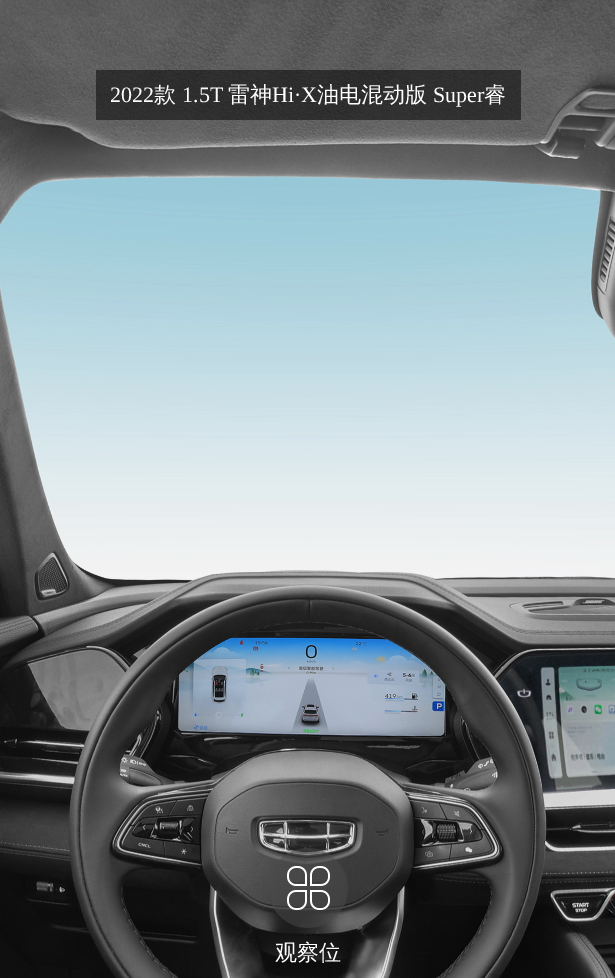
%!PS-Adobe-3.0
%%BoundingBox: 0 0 615 978
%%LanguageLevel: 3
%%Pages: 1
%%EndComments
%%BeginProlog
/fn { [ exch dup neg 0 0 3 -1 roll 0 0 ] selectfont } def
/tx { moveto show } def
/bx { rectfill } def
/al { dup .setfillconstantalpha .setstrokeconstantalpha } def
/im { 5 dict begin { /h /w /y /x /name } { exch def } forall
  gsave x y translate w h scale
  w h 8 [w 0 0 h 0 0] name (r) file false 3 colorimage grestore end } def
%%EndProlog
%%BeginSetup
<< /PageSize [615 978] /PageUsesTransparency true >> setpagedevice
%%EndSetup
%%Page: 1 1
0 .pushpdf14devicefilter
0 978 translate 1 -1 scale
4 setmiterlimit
1 setgray
0 0 615 978 bx
(image0.raw) 0 0 615 978 im
0.5 al
0 setgray
96 70 425 50 bx
/LiberationSerif-Regular 22 fn
1 al
1 setgray
(2022) 110 102 tx
/WenQuanYiZenHei-Medium 22 fn
(款) 154 102 tx
/LiberationSerif-Regular 22 fn
(1.5T) 182 102 tx
/WenQuanYiZenHei-Medium 22 fn
(雷神) 228 102 tx
/LiberationSerif-Regular 22 fn
(Hi·X) 272 102 tx
/WenQuanYiZenHei-Medium 22 fn
(油电混动版) 317 102 tx
/LiberationSerif-Regular 22 fn
(Super) 433 102 tx
/WenQuanYiZenHei-Medium 22 fn
(睿) 484 102 tx
(image1.raw) 272 848 76 80 im
(观察位) 275 960 tx
.poppdf14devicefilter showpage
%%EOF
